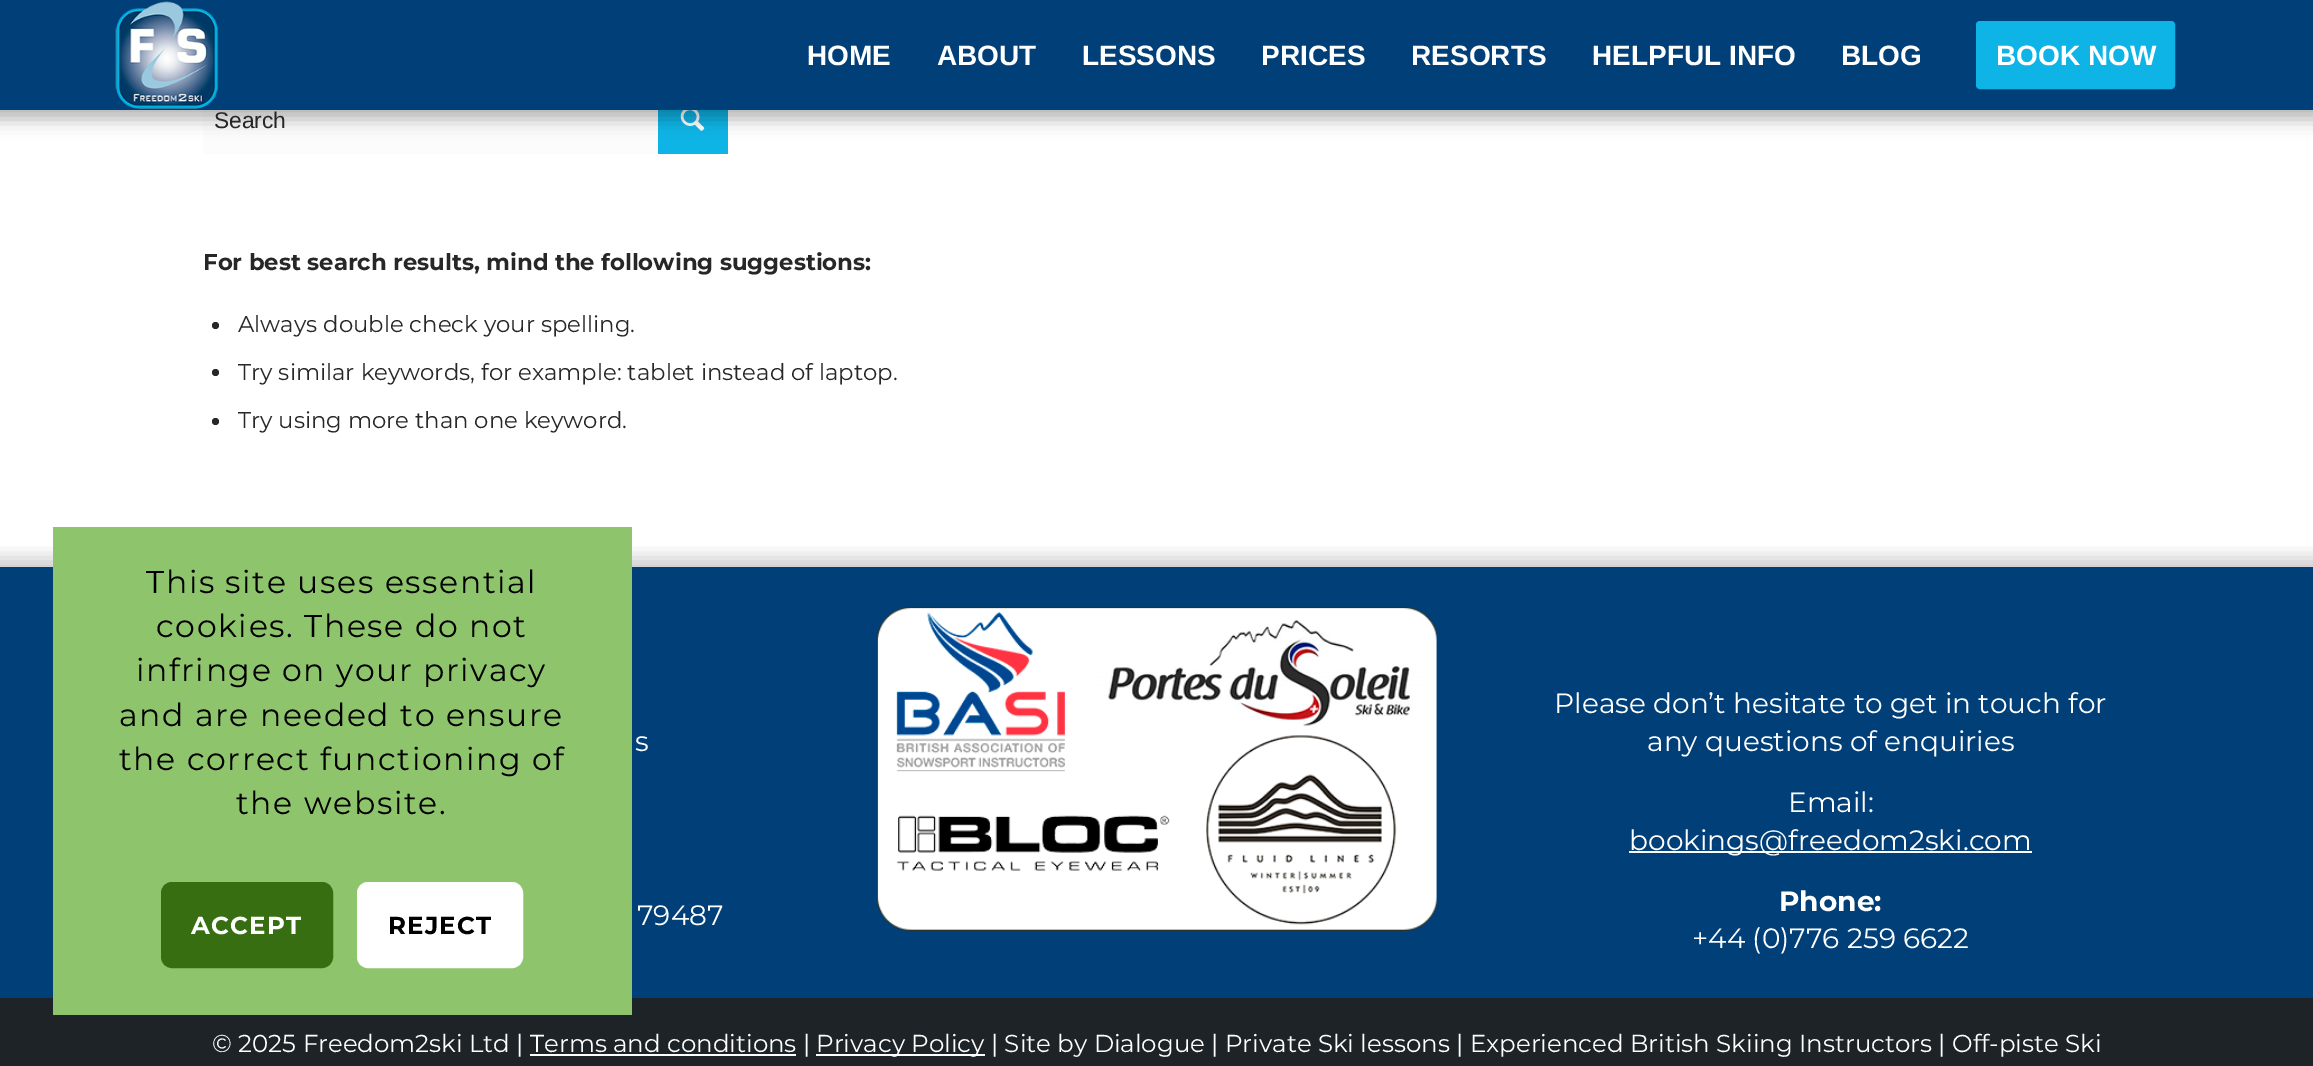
%!PS-Adobe-3.0
%%BoundingBox: 0 0 2313 1066
%%LanguageLevel: 3
%%Pages: 1
%%EndComments
%%BeginProlog
/m { moveto } bind def
/f { fill } bind def
/S { stroke } bind def
/q { gsave } bind def
/Q { grestore } bind def
/w { setlinewidth } bind def
/fn { [ exch dup neg 0 0 3 -1 roll 0 0 ] selectfont } def
/tx { moveto show } def
/bx { rectfill } def
/al { dup .setfillconstantalpha .setstrokeconstantalpha } def
/ci { newpath 0 360 arc closepath } def
/rr { 5 dict begin { /r /h /w /y /x } { exch def } forall
  x r add y moveto x w add y 2 copy h add r arct x w add y h add x 1 index r arct
  x y h add x y r arct x y 2 copy exch w add exch r arct closepath end } def
/sh { 12 dict begin { /a /b /q /h /w /y /x } { exch def } forall gsave /was 0 def
  9 -2 -9 { dup b mul 4 div /e exch def 1 sub .425 mul 2.718 exch exp 1 add a .99 .min exch div /now exch def
    1 1 now sub 1 was sub div sub al /was now def
    w h .min e 2 mul add 0 gt { x e sub y e sub w e 2 mul add h e 2 mul add
      q e add b .6 mul add w h .min 2 div e add .min 0 .max rr fill } if } for grestore end } def
/im { 5 dict begin { /h /w /y /x /name } { exch def } forall
  gsave x y translate w h scale
  w h 8 [w 0 0 h 0 0] name (r) file false 3 colorimage grestore end } def
%%EndProlog
%%BeginSetup
<< /PageSize [2313 1066] /PageUsesTransparency true >> setpagedevice
%%EndSetup
%%Page: 1 1
0 .pushpdf14devicefilter
0 1066 translate 1 -1 scale
4 setmiterlimit
0 0.247 0.467 setrgbcolor
0 0 2313 1066 bx
1 setgray
0 110 2313 457 bx
0.988 setgray
203 110 455 44 bx
0.055 0.706 0.902 setrgbcolor
658 110 70 44 bx
(image1.raw) 680 110 25 21 im
0 setgray
-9 -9 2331 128 0 9 0.3 sh
0 0.247 0.467 setrgbcolor
0 0 2313 110 bx
(image0.raw) 115 1 104 108 im
/LiberationSans-Bold 28 fn
1 setgray
(HOME) 807 65 tx
(ABOUT) 937 65 tx
(LESSONS) 1082 65 tx
(PRICES) 1261 65 tx
(RESORTS) 1411 65 tx
(HELPFUL INFO) 1592 65 tx
(BLOG) 1841 65 tx
0.055 0.706 0.902 setrgbcolor
1978 23 195 64 2 rr q f Q
4 w
S
1 setgray
(BOOK NOW) 1996 65 tx
/LiberationSans-Regular 22.75 fn
0.153 setgray
(Search) 214 128 tx
/Montserrat-Bold 22.75 fn
(For best search results, mind the following suggestions:) 203 270 tx
215.5 325.5 3.5 ci f
/Montserrat-Regular 22.75 fn
(Always double check your spelling.) 238 332 tx
215.5 372.5 3.5 ci f
(Try similar keywords, for example: tablet instead of laptop.) 238 380 tx
215.5 421.5 3.5 ci f
(Try using more than one keyword.) 238 428 tx
q
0 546 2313 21 rectclip
0 setgray
-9 558 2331 450 0 9 0.2 sh
Q
/Montserrat-Regular 28 fn
1 setgray
(s) 635 751 tx
(79487) 637 925 tx
(image2.raw) 876 606 561 325 im
(Please don’t hesitate to get in touch for) 1554 713 tx
(any questions of enquiries) 1647 751 tx
(Email:) 1788 812 tx
1629 851 403 2 bx
(bookings@freedom2ski.com) 1629 850 tx
/Montserrat-Bold 28 fn
(Phone:) 1779 911 tx
/Montserrat-Regular 28 fn
(+44 \(0\)776 259 6622) 1692 948 tx
0.114 0.137 0.153 setrgbcolor
0 998 2313 68 bx
/Montserrat-Regular 24.5 fn
1 setgray
(© 2025 Freedom2ski Ltd | Terms and conditions |) 212 1052 tx
816 1054 169 2 bx
(Privacy Policy | Site by Dialogue | Private Ski lessons | Experienced British Skiing Instructors | Off-piste Ski) 816 1052 tx
530 1054 266 2 bx
0.557 0.769 0.424 setrgbcolor
53 527 579 488 bx
/Montserrat-Regular 31.5 fn
0 setgray
146 593 m 1.6 0 (This site uses essential) ashow
156 637 m 1.6 0 (cookies. These do not) ashow
136 681 m 1.6 0 (infringe on your privacy) ashow
119 726 m 1.6 0 (and are needed to ensure) ashow
119 770 m 1.6 0 (the correct functioning of) ashow
236 814 m 1.6 0 (the website.) ashow
0.216 0.431 0.071 setrgbcolor
163 884 168 82 9 rr q f Q
S
/Montserrat-Bold 24.5 fn
1 setgray
191 934 m 1.25 0 (ACCEPT) ashow
359 884 162 82 9 rr q f Q
S
0 setgray
388 934 m 1.25 0 (REJECT) ashow
.poppdf14devicefilter showpage
%%EOF
